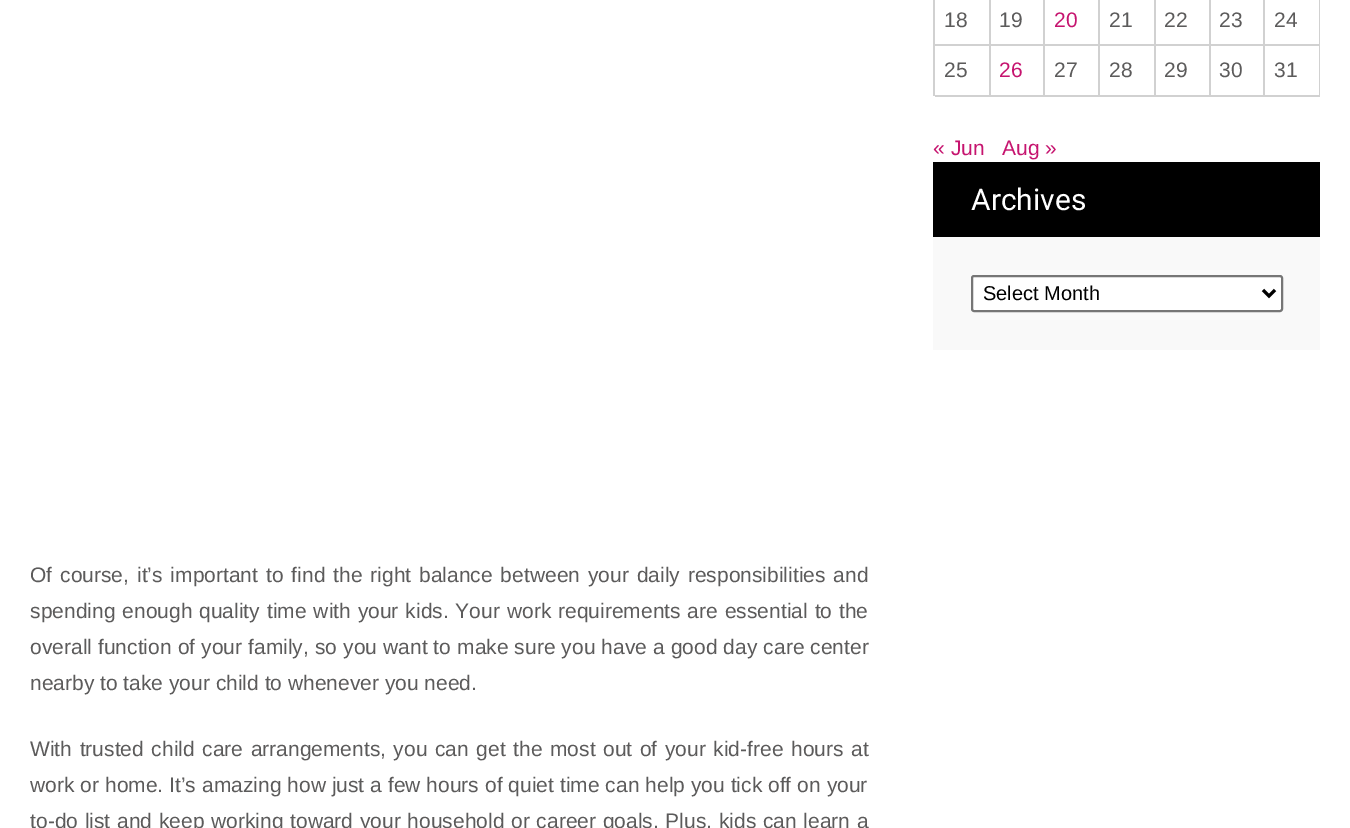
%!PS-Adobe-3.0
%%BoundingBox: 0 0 1350 828
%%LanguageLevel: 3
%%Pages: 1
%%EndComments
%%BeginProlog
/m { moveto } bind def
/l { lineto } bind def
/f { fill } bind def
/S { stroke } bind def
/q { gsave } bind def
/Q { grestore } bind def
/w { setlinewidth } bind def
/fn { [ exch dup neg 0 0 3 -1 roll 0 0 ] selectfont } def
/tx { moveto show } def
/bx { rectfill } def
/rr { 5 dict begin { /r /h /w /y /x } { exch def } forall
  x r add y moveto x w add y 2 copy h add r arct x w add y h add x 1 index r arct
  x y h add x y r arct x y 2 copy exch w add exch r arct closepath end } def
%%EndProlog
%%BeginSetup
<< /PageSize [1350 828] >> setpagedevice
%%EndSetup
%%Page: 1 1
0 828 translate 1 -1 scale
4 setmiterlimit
1 setgray
0 0 1350 828 bx
0.82 setgray
933 0 2 96 bx
989 0 2 45 bx
935 44 55 2 bx
/LiberationSans-Regular 21 fn
0.361 0.357 0.357 setrgbcolor
(18) 944 27 tx
0.82 setgray
1043 0 2 45 bx
990 44 54 2 bx
0.361 0.357 0.357 setrgbcolor
(19) 999 27 tx
0.82 setgray
1098 0 2 45 bx
1044 44 56 2 bx
0.776 0.078 0.435 setrgbcolor
(20) 1054 27 tx
0.82 setgray
1154 0 2 45 bx
1100 44 55 2 bx
0.361 0.357 0.357 setrgbcolor
(21) 1109 27 tx
0.82 setgray
1209 0 2 45 bx
1155 44 56 2 bx
0.361 0.357 0.357 setrgbcolor
(22) 1164 27 tx
0.82 setgray
1263 0 2 45 bx
1211 44 54 2 bx
0.361 0.357 0.357 setrgbcolor
(23) 1219 27 tx
0.82 setgray
1319 0 1 45 bx
1265 44 55 2 bx
0.361 0.357 0.357 setrgbcolor
(24) 1274 27 tx
0.82 setgray
989 45 2 51 bx
935 95 55 2 bx
0.361 0.357 0.357 setrgbcolor
(25) 944 77 tx
0.82 setgray
1043 45 2 51 bx
990 95 54 2 bx
0.776 0.078 0.435 setrgbcolor
(26) 999 77 tx
0.82 setgray
1098 45 2 51 bx
1044 95 56 2 bx
0.361 0.357 0.357 setrgbcolor
(27) 1054 77 tx
0.82 setgray
1154 45 2 51 bx
1100 95 55 2 bx
0.361 0.357 0.357 setrgbcolor
(28) 1109 77 tx
0.82 setgray
1209 45 2 51 bx
1155 95 56 2 bx
0.361 0.357 0.357 setrgbcolor
(29) 1164 77 tx
0.82 setgray
1263 45 2 51 bx
1211 95 54 2 bx
0.361 0.357 0.357 setrgbcolor
(30) 1219 77 tx
0.82 setgray
1319 45 1 51 bx
1265 95 55 2 bx
0.361 0.357 0.357 setrgbcolor
(31) 1274 77 tx
0.776 0.078 0.435 setrgbcolor
(« Jun) 933 155 tx
(Aug ») 1002 155 tx
0 setgray
933 162 387 75 bx
/Roboto-Regular 30 fn
1 setgray
(Archives) 971 210 tx
0.976 setgray
933 237 387 113 bx
1 setgray
972 276 310 35 2 rr q f Q
0.463 setgray
2 w
S
0 setgray
3 w
1263 290 m 1269 296 l 1275 290 l S
/LiberationSans-Regular 20 fn
(Select Month) 983 300 tx
/LiberationSans-Regular 21 fn
0.361 0.357 0.357 setrgbcolor
30 582 m 2.1 0 32 (Of course, it’s important to find the right balance between your daily responsibilities and) widthshow
30 618 m 1.1 0 32 (spending enough quality time with your kids. Your work requirements are essential to the) widthshow
30 654 m 0.25 0 32 (overall function of your family, so you want to make sure you have a good day care center) widthshow
(nearby to take your child to whenever you need.) 30 690 tx
30 756 m 1.75 0 32 (With trusted child care arrangements, you can get the most out of your kid-free hours at) widthshow
30 792 m 0.1 0 32 (work or home. It’s amazing how just a few hours of quiet time can help you tick off on your) widthshow
30 828 m 0.9 0 32 (to-do list and keep working toward your household or career goals. Plus, kids can learn a) widthshow
showpage
%%EOF
